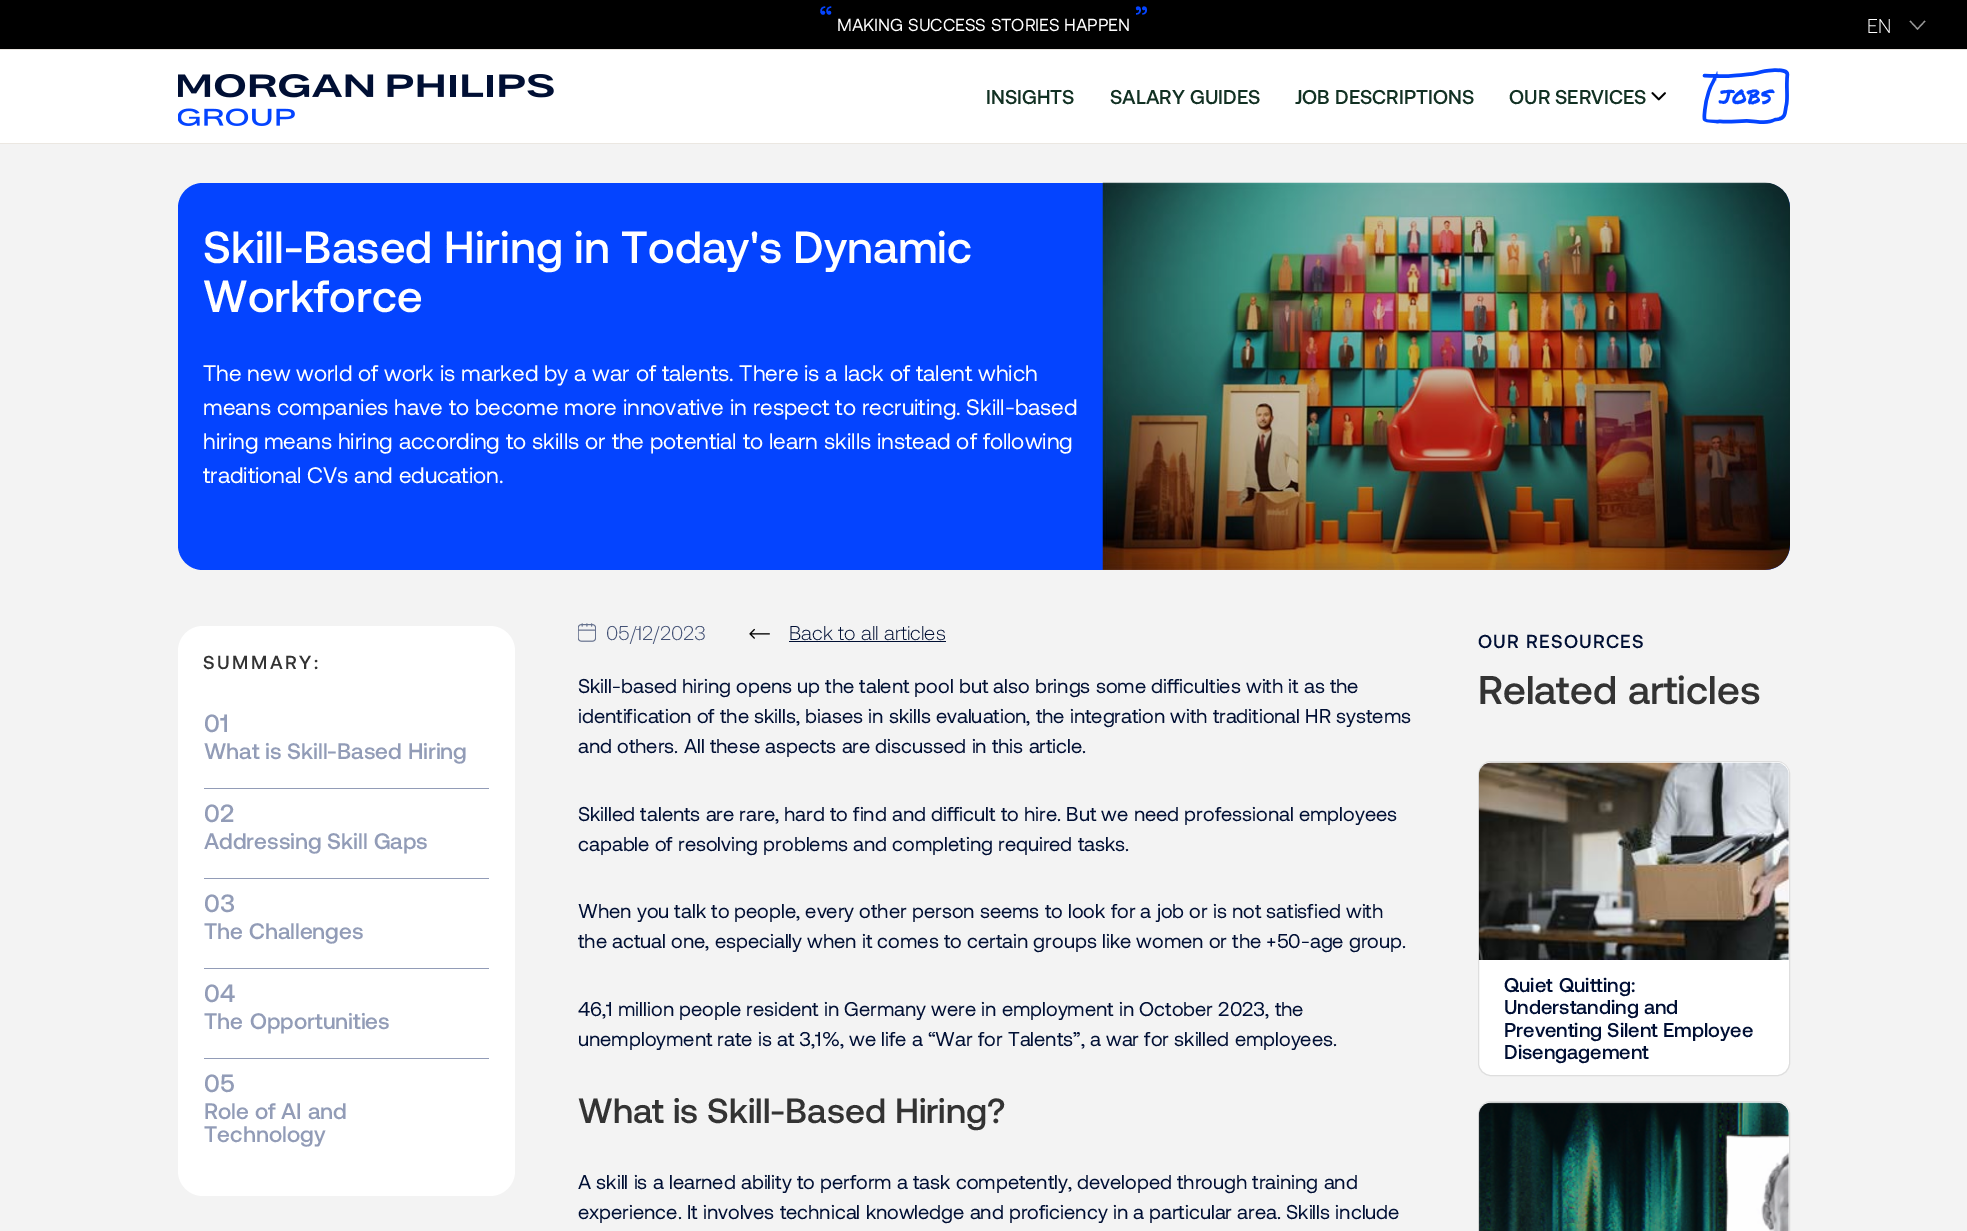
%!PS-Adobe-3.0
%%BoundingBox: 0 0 1967 1231
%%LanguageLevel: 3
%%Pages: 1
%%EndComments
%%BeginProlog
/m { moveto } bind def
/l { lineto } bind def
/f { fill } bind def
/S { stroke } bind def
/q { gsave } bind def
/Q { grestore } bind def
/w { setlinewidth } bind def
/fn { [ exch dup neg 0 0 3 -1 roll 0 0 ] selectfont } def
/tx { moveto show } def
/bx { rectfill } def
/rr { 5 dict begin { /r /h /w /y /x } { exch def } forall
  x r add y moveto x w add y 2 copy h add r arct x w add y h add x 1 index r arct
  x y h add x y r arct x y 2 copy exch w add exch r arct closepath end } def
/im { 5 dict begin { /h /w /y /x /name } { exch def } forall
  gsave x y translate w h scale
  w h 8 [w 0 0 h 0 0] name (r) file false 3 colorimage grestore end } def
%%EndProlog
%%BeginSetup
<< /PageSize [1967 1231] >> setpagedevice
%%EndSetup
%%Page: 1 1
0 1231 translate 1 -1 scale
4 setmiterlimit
1 setgray
0 0 1967 1231 bx
0 setgray
0 0 1967 49 bx
0.922 0.906 0.882 setrgbcolor
0 49 1967 1 bx
/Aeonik-Regular 35 fn
0.016 0.267 1 setrgbcolor
(“) 819 31 tx
(”) 1135 31 tx
/Aeonik-Regular 17.5 fn
1 setgray
(MAKING SUCCESS STORIES HAPPEN) 837 31 tx
0.6 setgray
1.2 w
1910 21 m 1917.5 29 l 1925 21 l S
/Aeonik-Light 20 fn
1 setgray
(EN) 1867 33 tx
0.922 0.906 0.882 setrgbcolor
0 143 1967 1 bx
(image0.raw) 178 74 376 52 im
/Aeonik-Medium 20 fn
0.071 0.192 0.137 setrgbcolor
(INSIGHTS) 986 104 tx
(SALARY GUIDES) 1110 104 tx
(JOB DESCRIPTIONS) 1295 104 tx
(image1.raw) 1651 92 15 9 im
(OUR SERVICES) 1509 104 tx
(image2.raw) 1702 68 88 56 im
/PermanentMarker-Regular 20 fn
0.016 0.267 1 setrgbcolor
(JOBS) 1719 104 tx
0.953 setgray
0 144 1967 1087 bx
0.016 0.267 1 setrgbcolor
178 183 1612 387 25 rr f
/Aeonik-Medium 45 fn
1 setgray
(Skill-Based Hiring in Today's Dynamic) 203 263 tx
(Workforce) 203 312 tx
(image3.raw) 1102 182 688 388 im
/Aeonik-Regular 22.5 fn
(The new world of work is marked by a war of talents. There is a lack of talent which) 203 381 tx
(means companies have to become more innovative in respect to recruiting. Skill-based) 203 415 tx
(hiring means hiring according to skills or the potential to learn skills instead of following) 203 449 tx
(traditional CVs and education.) 203 483 tx
178 626 337 570 25 rr f
/Aeonik-Medium 18.75 fn
0.2 setgray
203 669 m 2.5 0 (SUMMARY:) ashow
/Aeonik-Medium 25 fn
0.573 0.612 0.718 setrgbcolor
(01) 204 732 tx
/Aeonik-Medium 22.5 fn
(What is Skill-Based Hiring) 204 759 tx
204 788 285 1 bx
/Aeonik-Medium 25 fn
(02) 204 822 tx
/Aeonik-Medium 22.5 fn
(Addressing Skill Gaps) 204 849 tx
204 878 285 1 bx
/Aeonik-Medium 25 fn
(03) 204 912 tx
/Aeonik-Medium 22.5 fn
(The Challenges) 204 939 tx
204 968 285 1 bx
/Aeonik-Medium 25 fn
(04) 204 1002 tx
/Aeonik-Medium 22.5 fn
204 1029 m 1 0 32 (The Opportunities) widthshow
204 1058 285 1 bx
/Aeonik-Medium 25 fn
(05) 204 1092 tx
/Aeonik-Medium 22.5 fn
(Role of AI and) 204 1119 tx
(Technology) 204 1142 tx
(image4.raw) 578 623 18 19 im
/Aeonik-Light 20 fn
0.259 0.314 0.455 setrgbcolor
(05/12/2023) 606 640 tx
(image5.raw) 749 628 21 11 im
0 0.059 0.204 setrgbcolor
(Back to all articles) 789 640 tx
789 641 157 1 bx
/Aeonik-Regular 20 fn
(Skill-based hiring opens up the talent pool but also brings some difficulties with it as the) 578 693 tx
(identification of the skills, biases in skills evaluation, the integration with traditional HR systems) 578 723 tx
(and others. All these aspects are discussed in this article.) 578 753 tx
(Skilled talents are rare, hard to find and difficult to hire. But we need professional employees) 578 821 tx
(capable of resolving problems and completing required tasks.) 578 851 tx
(When you talk to people, every other person seems to look for a job or is not satisfied with) 578 918 tx
(the actual one, especially when it comes to certain groups like women or the +50-age group.) 578 948 tx
(46,1 million people resident in Germany were in employment in October 2023, the) 578 1016 tx
(unemployment rate is at 3,1%, we life a “War for Talents”, a war for skilled employees.) 578 1046 tx
/Aeonik-Medium 35 fn
0.2 setgray
(What is Skill-Based Hiring?) 578 1123 tx
/Aeonik-Regular 20 fn
0 0.059 0.204 setrgbcolor
(A skill is a learned ability to perform a task competently, developed through training and) 578 1189 tx
(experience. It involves technical knowledge and proficiency in a particular area. Skills include) 578 1219 tx
/Aeonik-Medium 18.75 fn
1478 648 m 1.25 0 (OUR RESOURCES) ashow
/Aeonik-Medium 40 fn
0.2 setgray
1478 704 m 1 0 32 (Related articles) widthshow
1 setgray
1478.5 761.5 311 314 12.5 rr q f Q
0.871 setgray
1 w
S
(image6.raw) 1478 762 311 198 im
/Aeonik-Medium 20 fn
0 0.059 0.204 setrgbcolor
1504 992 m 1 0 32 (Quiet Quitting:) widthshow
(Understanding and) 1504 1014 tx
(Preventing Silent Employee) 1504 1037 tx
(Disengagement) 1504 1059 tx
1 setgray
1478.5 1101.5 311 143 12.5 rr q f Q
0.871 setgray
S
(image7.raw) 1478 1102 311 129 im
showpage
%%EOF
